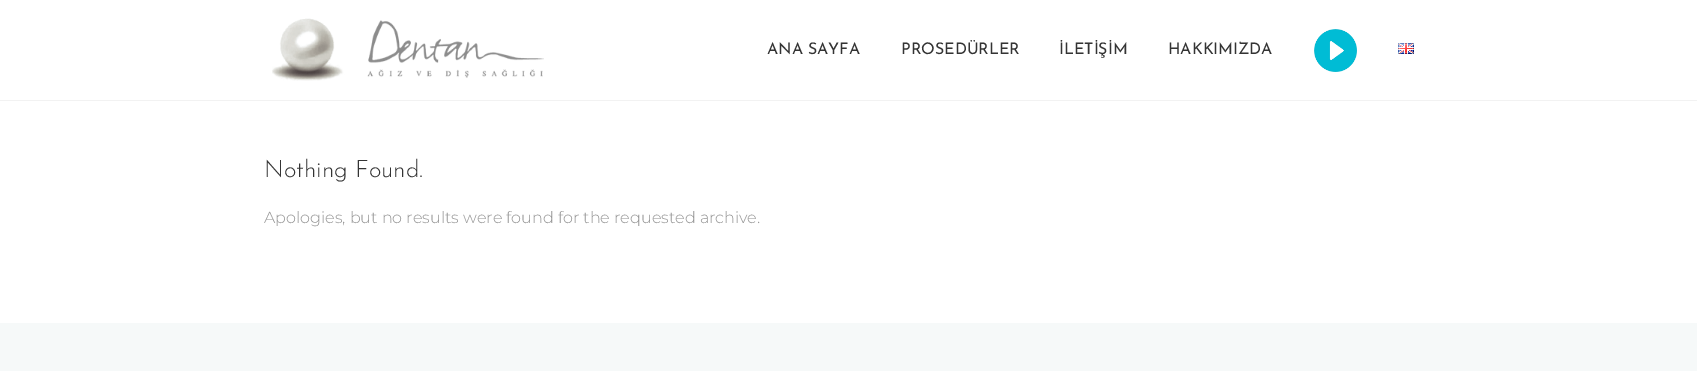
%!PS-Adobe-3.0
%%BoundingBox: 0 0 1697 371
%%LanguageLevel: 3
%%Pages: 1
%%EndComments
%%BeginProlog
/fn { [ exch dup neg 0 0 3 -1 roll 0 0 ] selectfont } def
/tx { moveto show } def
/bx { rectfill } def
/im { 5 dict begin { /h /w /y /x /name } { exch def } forall
  gsave x y translate w h scale
  w h 8 [w 0 0 h 0 0] name (r) file false 3 colorimage grestore end } def
%%EndProlog
%%BeginSetup
<< /PageSize [1697 371] >> setpagedevice
%%EndSetup
%%Page: 1 1
0 371 translate 1 -1 scale
4 setmiterlimit
1 setgray
0 0 1697 371 bx
0.949 setgray
0 100 1697 1 bx
(image0.raw) 272 18 272 63 im
/JosefinSans-Regular 16 fn
0.204 setgray
(ANA SAYFA) 767 54 tx
(PROSEDÜRLER) 901 54 tx
(İLETİŞİM) 1059 54 tx
(HAKKIMIZDA) 1168 54 tx
(image1.raw) 1314 29 43 43 im
(image2.raw) 1398 43 16 11 im
/JosefinSans-Light 24 fn
(Nothing Found.) 264 177 tx
/Montserrat-Light 16 fn
0.584 setgray
(Apologies, but no results were found for the requested archive.) 264 223 tx
0.965 0.976 0.976 setrgbcolor
0 323 1697 48 bx
showpage
%%EOF
